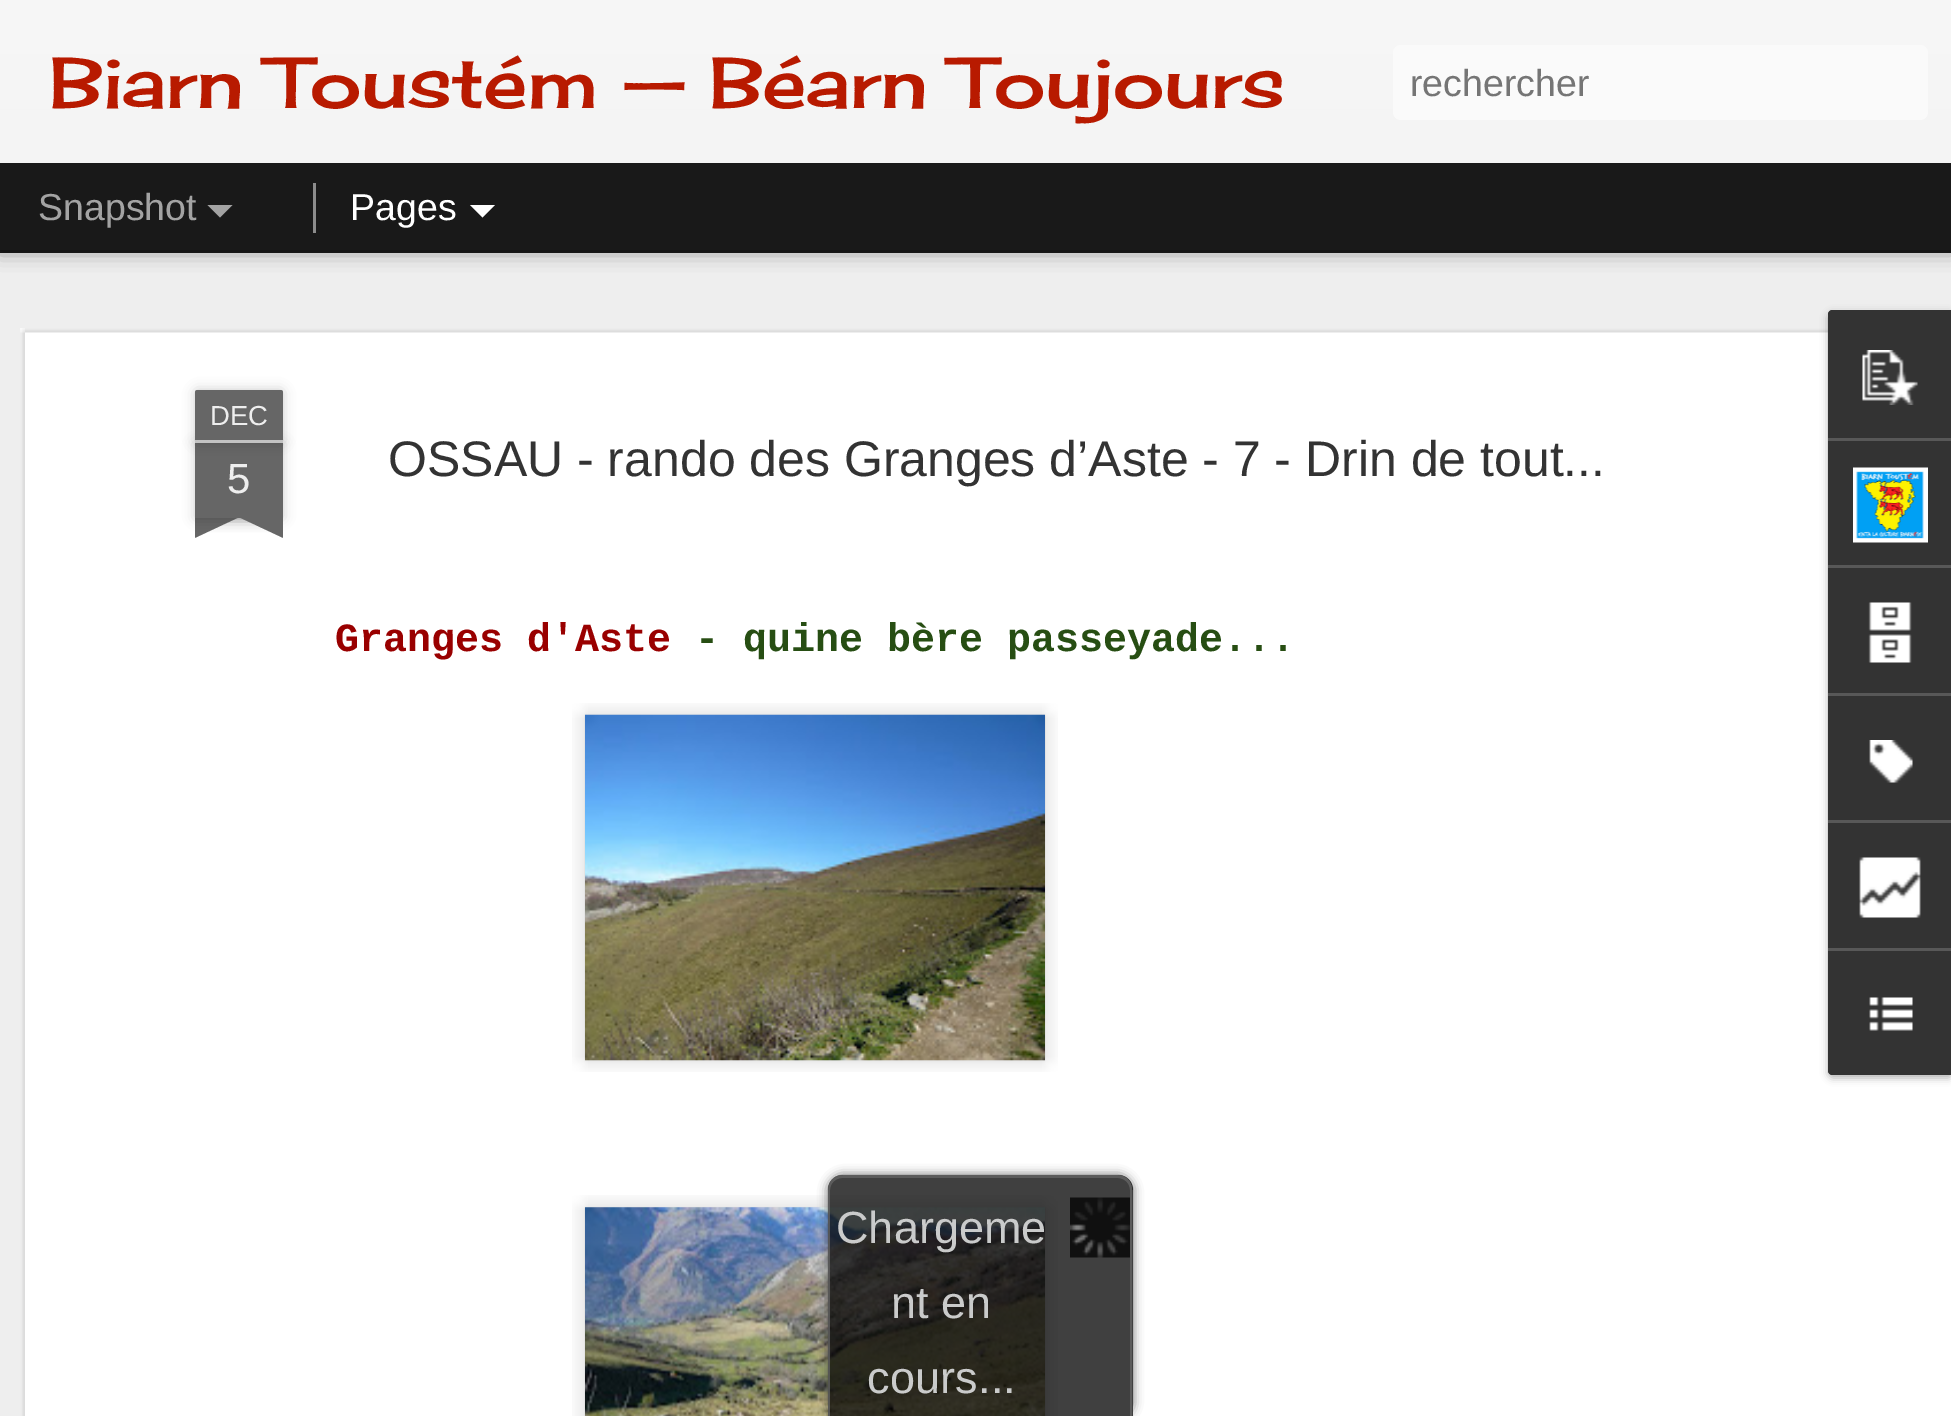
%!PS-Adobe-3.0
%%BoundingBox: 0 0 1951 1416
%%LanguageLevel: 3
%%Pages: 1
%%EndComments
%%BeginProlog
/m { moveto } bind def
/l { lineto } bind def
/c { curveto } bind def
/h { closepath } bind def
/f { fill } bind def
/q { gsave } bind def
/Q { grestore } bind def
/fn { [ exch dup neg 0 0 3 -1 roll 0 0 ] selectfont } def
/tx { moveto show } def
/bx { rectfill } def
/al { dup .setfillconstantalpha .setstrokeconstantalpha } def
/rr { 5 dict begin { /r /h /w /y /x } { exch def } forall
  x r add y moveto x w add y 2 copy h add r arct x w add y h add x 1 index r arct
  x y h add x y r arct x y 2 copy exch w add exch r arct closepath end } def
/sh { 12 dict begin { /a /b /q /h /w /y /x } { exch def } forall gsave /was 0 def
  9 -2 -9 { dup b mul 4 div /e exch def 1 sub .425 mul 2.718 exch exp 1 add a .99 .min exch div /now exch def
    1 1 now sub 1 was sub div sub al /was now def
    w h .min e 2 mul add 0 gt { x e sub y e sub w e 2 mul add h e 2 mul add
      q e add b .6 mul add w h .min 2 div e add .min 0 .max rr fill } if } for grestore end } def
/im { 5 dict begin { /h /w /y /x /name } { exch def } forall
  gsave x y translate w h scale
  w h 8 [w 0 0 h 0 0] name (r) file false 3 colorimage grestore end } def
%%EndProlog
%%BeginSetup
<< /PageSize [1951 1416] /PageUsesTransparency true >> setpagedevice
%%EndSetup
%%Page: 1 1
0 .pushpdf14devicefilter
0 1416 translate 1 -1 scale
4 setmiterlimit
0.098 setgray
0 0 1951 1416 bx
0.933 setgray
0 253 1951 1163 bx
0 setgray
0 163 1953 87 0 10 0.5 sh
q 0 0 m 1951 0 l 1951 163 l 0 163 l h clip newpath
<< /ShadingType 2 /ColorSpace /DeviceRGB /Coords [0 0 0 163] /Extend [true true] /Function << /FunctionType 2 /Domain [0 1] /C0 [0.969 0.969 0.969] /C1 [0.957 0.957 0.957] /N 1 >> >> shfill Q
/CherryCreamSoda-Regular 70 fn
0.722 0.102 0 setrgbcolor
(Biarn Toustém — Béarn Toujours) 50 108 tx
0.98 setgray
1393 45 535 75 8 rr f
/LiberationSans-Regular 37.5 fn
0.459 setgray
(rechercher) 1410 96 tx
0.098 setgray
0 163 1951 87 bx
0.639 setgray
(Snapshot) 38 220 tx
207.5 205 m 232.5 205 l 220 217.5 l h f
0.549 setgray
313 183 3 50 bx
1 setgray
(Pages) 350 220 tx
470 205 m 495 205 l 482.5 217.5 l h f
20 328 1931 1088 bx
(image0.raw) 20 328 1808 1088 im
0 setgray
195 443 88 75 0 6 0.2 sh
0.4 setgray
195 443 88 75 bx
0 setgray
195 390 88 53 2.5 6 0.2 sh
0.4 setgray
197.5 390 m 280.5 390 l 282 390 283 391 283 392.5 c 283 443 l 195 443 l 195 392.5 l 195 391 196 390 197.5 390 c h f
0.761 setgray
195 440 88 3 bx
/LiberationSans-Regular 27.5 fn
0.933 setgray
(DEC) 210 425 tx
/LiberationSans-Regular 42 fn
(5) 227 493 tx
q
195 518 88 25 rectclip
0 setgray
173 493 125 25 0 6.5 0.2 sh
Q
q
195 518 88 25 rectclip
0.4 setgray
173 520 m 286 467 l 297 490 l 184 543 l h f
Q
q
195 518 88 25 rectclip
0 setgray
180 493 125 25 0 6.5 0.2 sh
Q
q
195 518 88 25 rectclip
0.4 setgray
191 467 m 304 520 l 294 543 l 181 490 l h f
Q
/LiberationSans-Regular 50 fn
0.2 setgray
(OSSAU - rando des Granges d’Aste - 7 - Drin de tout...) 388 476 tx
/LiberationMono-Bold 40 fn
0.6 0 0 setrgbcolor
(Granges d'Aste) 335 651 tx
0.153 0.306 0.075 setrgbcolor
(- quine bère passeyade...) 695 651 tx
(image1.raw) 572 703 486 369 im
(image2.raw) 585 715 460 345 im
(image3.raw) 572 1195 486 221 im
(image4.raw) 585 1207 460 209 im
0 setgray
1828 313 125 765 5 4 0.3 sh
0.2 setgray
1833 310 m 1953 310 l 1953 1075 l 1833 1075 l 1830 1075 1828 1073 1828 1070 c 1828 315 l 1828 312 1830 310 1833 310 c h f
1833 310 m 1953 310 l 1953 438 l 1828 438 l 1828 315 l 1828 312 1830 310 1833 310 c h f
(image5.raw) 1862 350 56 55 im
0.345 setgray
1828 438 123 3 bx
(image6.raw) 1853 467 75 76 im
1828 565 123 3 bx
(image7.raw) 1868 602 44 61 im
1828 693 123 3 bx
(image8.raw) 1869 740 44 43 im
1828 820 123 3 bx
(image9.raw) 1859 857 62 61 im
0.2 setgray
1828 948 m 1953 948 l 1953 1075 l 1833 1075 l 1830 1075 1828 1073 1828 1070 c h f
0.345 setgray
1828 948 123 3 bx
(image10.raw) 1869 997 44 34 im
q
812 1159 m 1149 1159 l 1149 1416 l 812 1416 l h 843 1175 m 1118 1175 l 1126.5 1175 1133 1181.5 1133 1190 c 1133 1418 l 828 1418 l 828 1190 l 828 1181.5 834.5 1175 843 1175 c h eoclip newpath
0.2 setgray
828 1175 305 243 15 5 0.75 sh
Q
0.75 al
0 setgray
843 1175 m 1118 1175 l 1126.5 1175 1133 1181.5 1133 1190 c 1133 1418 l 828 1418 l 828 1190 l 828 1181.5 834.5 1175 843 1175 c h f
0.4 setgray
842 1175 m 1118 1175 l 1126 1175 1132 1182 1132 1190 c 1132 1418 l 828 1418 l 828 1190 l 828 1182 834 1175 842 1175 c h 842 1178 m 1118 1178 l 1124 1178 1130 1183 1130 1190 c 1130 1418 l 830 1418 l 830 1190 l 830 1183 836 1178 842 1178 c h eofill
1 al
(image11.raw) 1070 1197 60 61 im
/LiberationSans-Regular 45 fn
0.792 0.796 0.796 setrgbcolor
(Chargeme) 836 1243 tx
(nt en) 891 1318 tx
(cours) 867 1393 tx
(...) 978 1393 tx
.poppdf14devicefilter showpage
%%EOF
